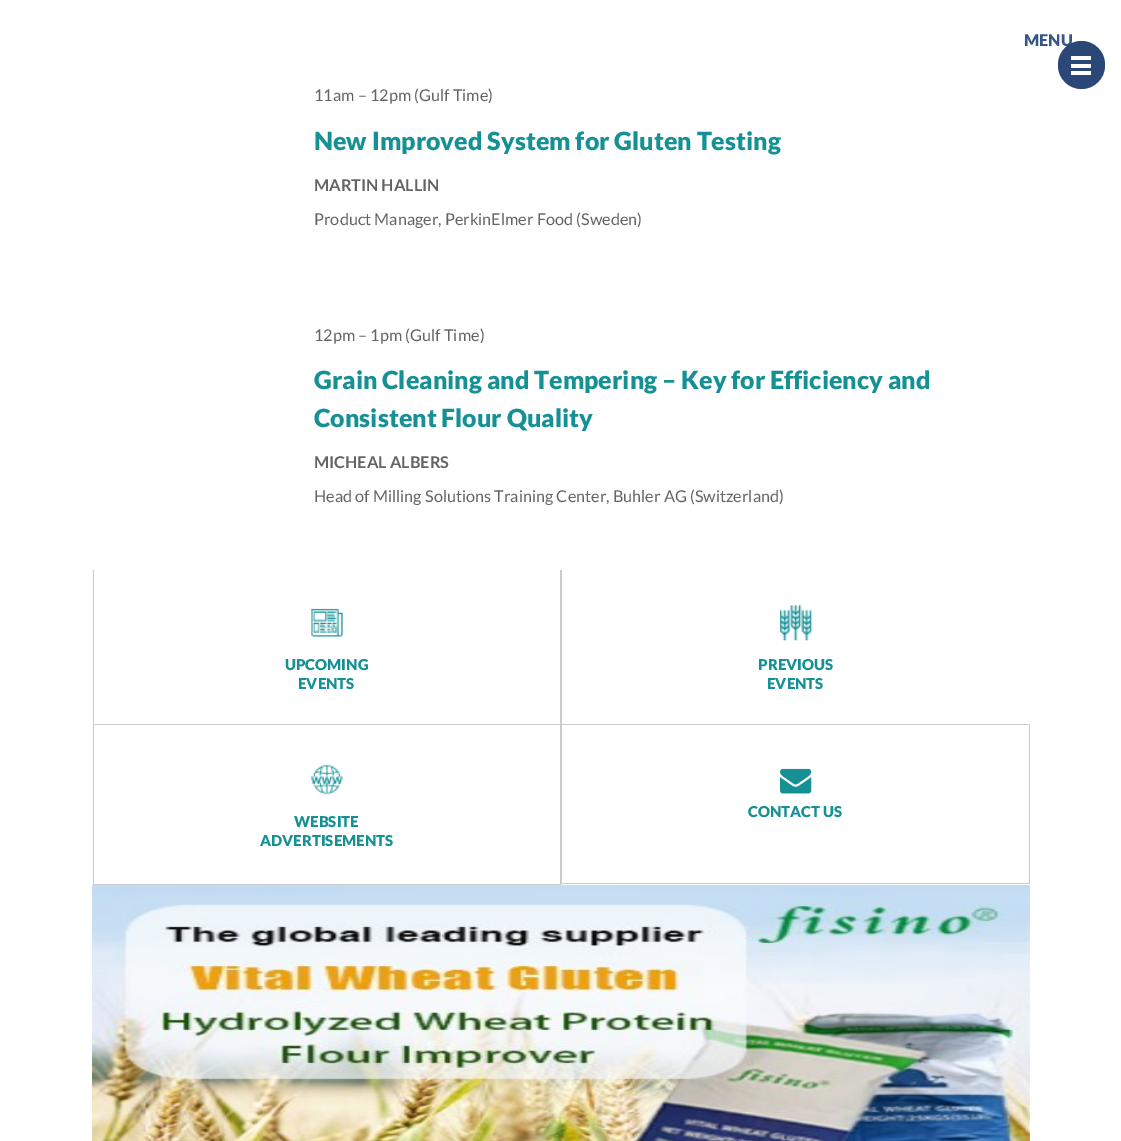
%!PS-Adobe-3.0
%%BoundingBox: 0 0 1121 1141
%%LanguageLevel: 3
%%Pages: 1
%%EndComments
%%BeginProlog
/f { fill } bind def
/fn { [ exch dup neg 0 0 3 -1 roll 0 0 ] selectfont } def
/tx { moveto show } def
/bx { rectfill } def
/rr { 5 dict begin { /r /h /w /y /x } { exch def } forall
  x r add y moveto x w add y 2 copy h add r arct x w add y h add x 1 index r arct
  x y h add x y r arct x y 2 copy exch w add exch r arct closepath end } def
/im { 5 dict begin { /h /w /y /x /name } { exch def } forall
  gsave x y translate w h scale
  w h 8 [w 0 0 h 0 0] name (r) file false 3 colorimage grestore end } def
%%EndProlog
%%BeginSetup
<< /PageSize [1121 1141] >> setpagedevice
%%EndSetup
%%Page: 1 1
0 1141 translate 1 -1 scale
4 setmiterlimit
1 setgray
0 0 1121 1141 bx
/Lato-Black 16.25 fn
0.216 0.333 0.529 setrgbcolor
(MENU) 1024 46 tx
0.169 0.278 0.471 setrgbcolor
1058 41 47 48 23.5 rr f
1 setgray
1071 64 20 4 bx
1071 56 20 4 bx
1071 71 20 4 bx
/Lato-Regular 16.25 fn
0.392 setgray
(11am – 12pm \(Gulf Time\)) 314 101 tx
/Lato-Black 25 fn
0.082 0.565 0.584 setrgbcolor
(New Improved System for Gluten Testing) 314 150 tx
/Lato-Bold 16.25 fn
0.392 setgray
(MARTIN HALLIN) 314 191 tx
/Lato-Regular 16.25 fn
(Product Manager, PerkinElmer Food \(Sweden\)) 314 225 tx
(12pm – 1pm \(Gulf Time\)) 314 341 tx
/Lato-Black 25 fn
0.082 0.565 0.584 setrgbcolor
(Grain Cleaning and Tempering – Key for Efficiency and) 314 389 tx
(Consistent Flour Quality) 314 427 tx
/Lato-Bold 16.25 fn
0.392 setgray
(MICHEAL ALBERS) 314 468 tx
/Lato-Regular 16.25 fn
(Head of Milling Solutions Training Center, Buhler AG \(Switzerland\)) 314 502 tx
0.8 setgray
560 570 1 315 bx
93 724 937 1 bx
93 570 1 155 bx
(image0.raw) 311 608 32 29 im
/Lato-Black 15 fn
0.082 0.565 0.584 setrgbcolor
(UPCOMING) 285 670 tx
(EVENTS) 298 689 tx
0.8 setgray
561 570 1 155 bx
(image1.raw) 779 605 33 36 im
0.082 0.565 0.584 setrgbcolor
(PREVIOUS) 758 670 tx
(EVENTS) 767 689 tx
0.8 setgray
1029 725 1 159 bx
561 883 469 1 bx
561 725 1 159 bx
(image2.raw) 780 768 32 26 im
0.082 0.565 0.584 setrgbcolor
(CONTACT US) 748 817 tx
0.8 setgray
93 884 468 1 bx
93 725 1 160 bx
(image3.raw) 311 765 32 30 im
0.082 0.565 0.584 setrgbcolor
(WEBSITE) 294 827 tx
(ADVERTISEMENTS) 260 846 tx
(image4.raw) 92 885 938 256 im
showpage
%%EOF
